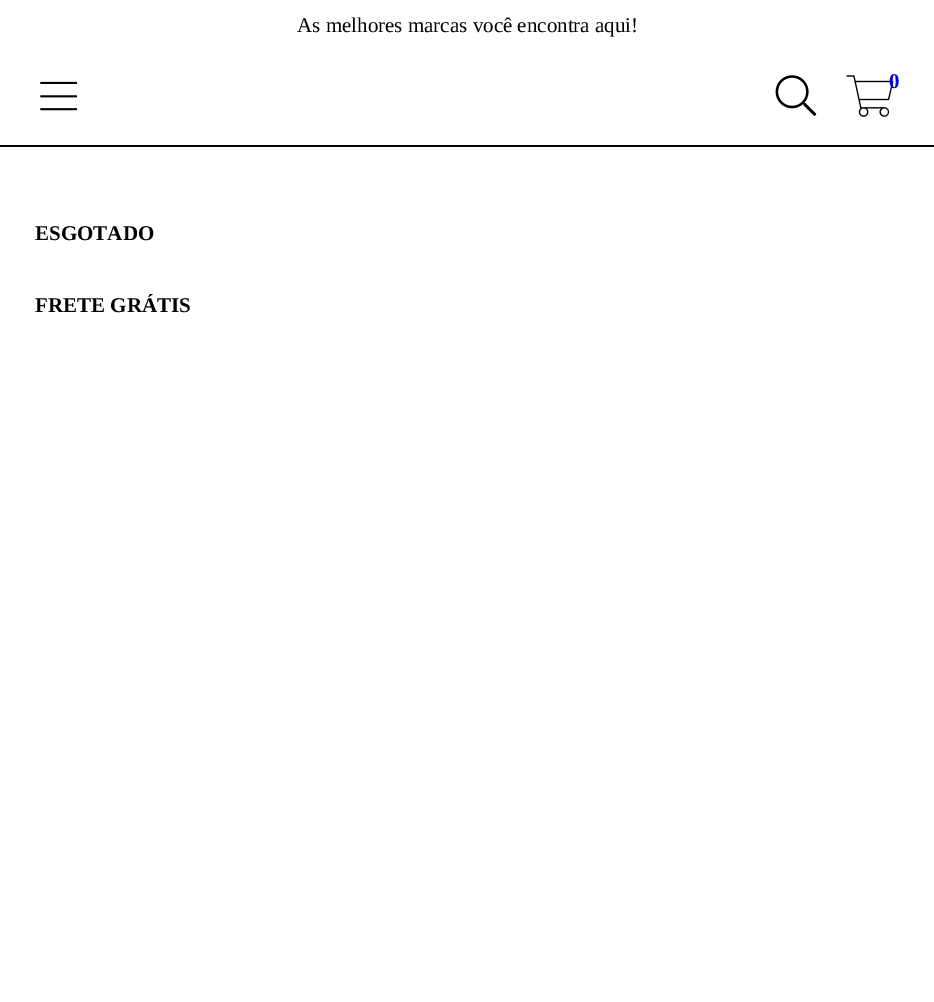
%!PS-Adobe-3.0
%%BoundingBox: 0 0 934 1002
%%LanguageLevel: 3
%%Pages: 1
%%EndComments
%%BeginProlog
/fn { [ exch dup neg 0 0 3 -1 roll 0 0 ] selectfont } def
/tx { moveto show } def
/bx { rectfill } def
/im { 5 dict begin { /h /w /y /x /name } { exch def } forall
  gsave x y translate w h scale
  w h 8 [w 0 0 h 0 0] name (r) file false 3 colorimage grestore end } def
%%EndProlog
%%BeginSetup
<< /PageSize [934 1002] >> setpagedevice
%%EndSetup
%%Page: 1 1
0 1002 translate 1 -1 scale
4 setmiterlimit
1 setgray
0 0 934 1002 bx
/LiberationSerif-Regular 21 fn
0 setgray
(As melhores marcas você encontra aqui!) 297 32 tx
(image0.raw) 40 81 37 30 im
(image1.raw) 775 75 42 41 im
(image2.raw) 846 75 48 42 im
/LiberationSerif-Bold 21 fn
0 0 0.933 setrgbcolor
(0) 889 88 tx
0 setgray
0 145 934 2 bx
(ESGOTADO) 35 240 tx
(FRETE GRÁTIS) 35 312 tx
showpage
%%EOF
